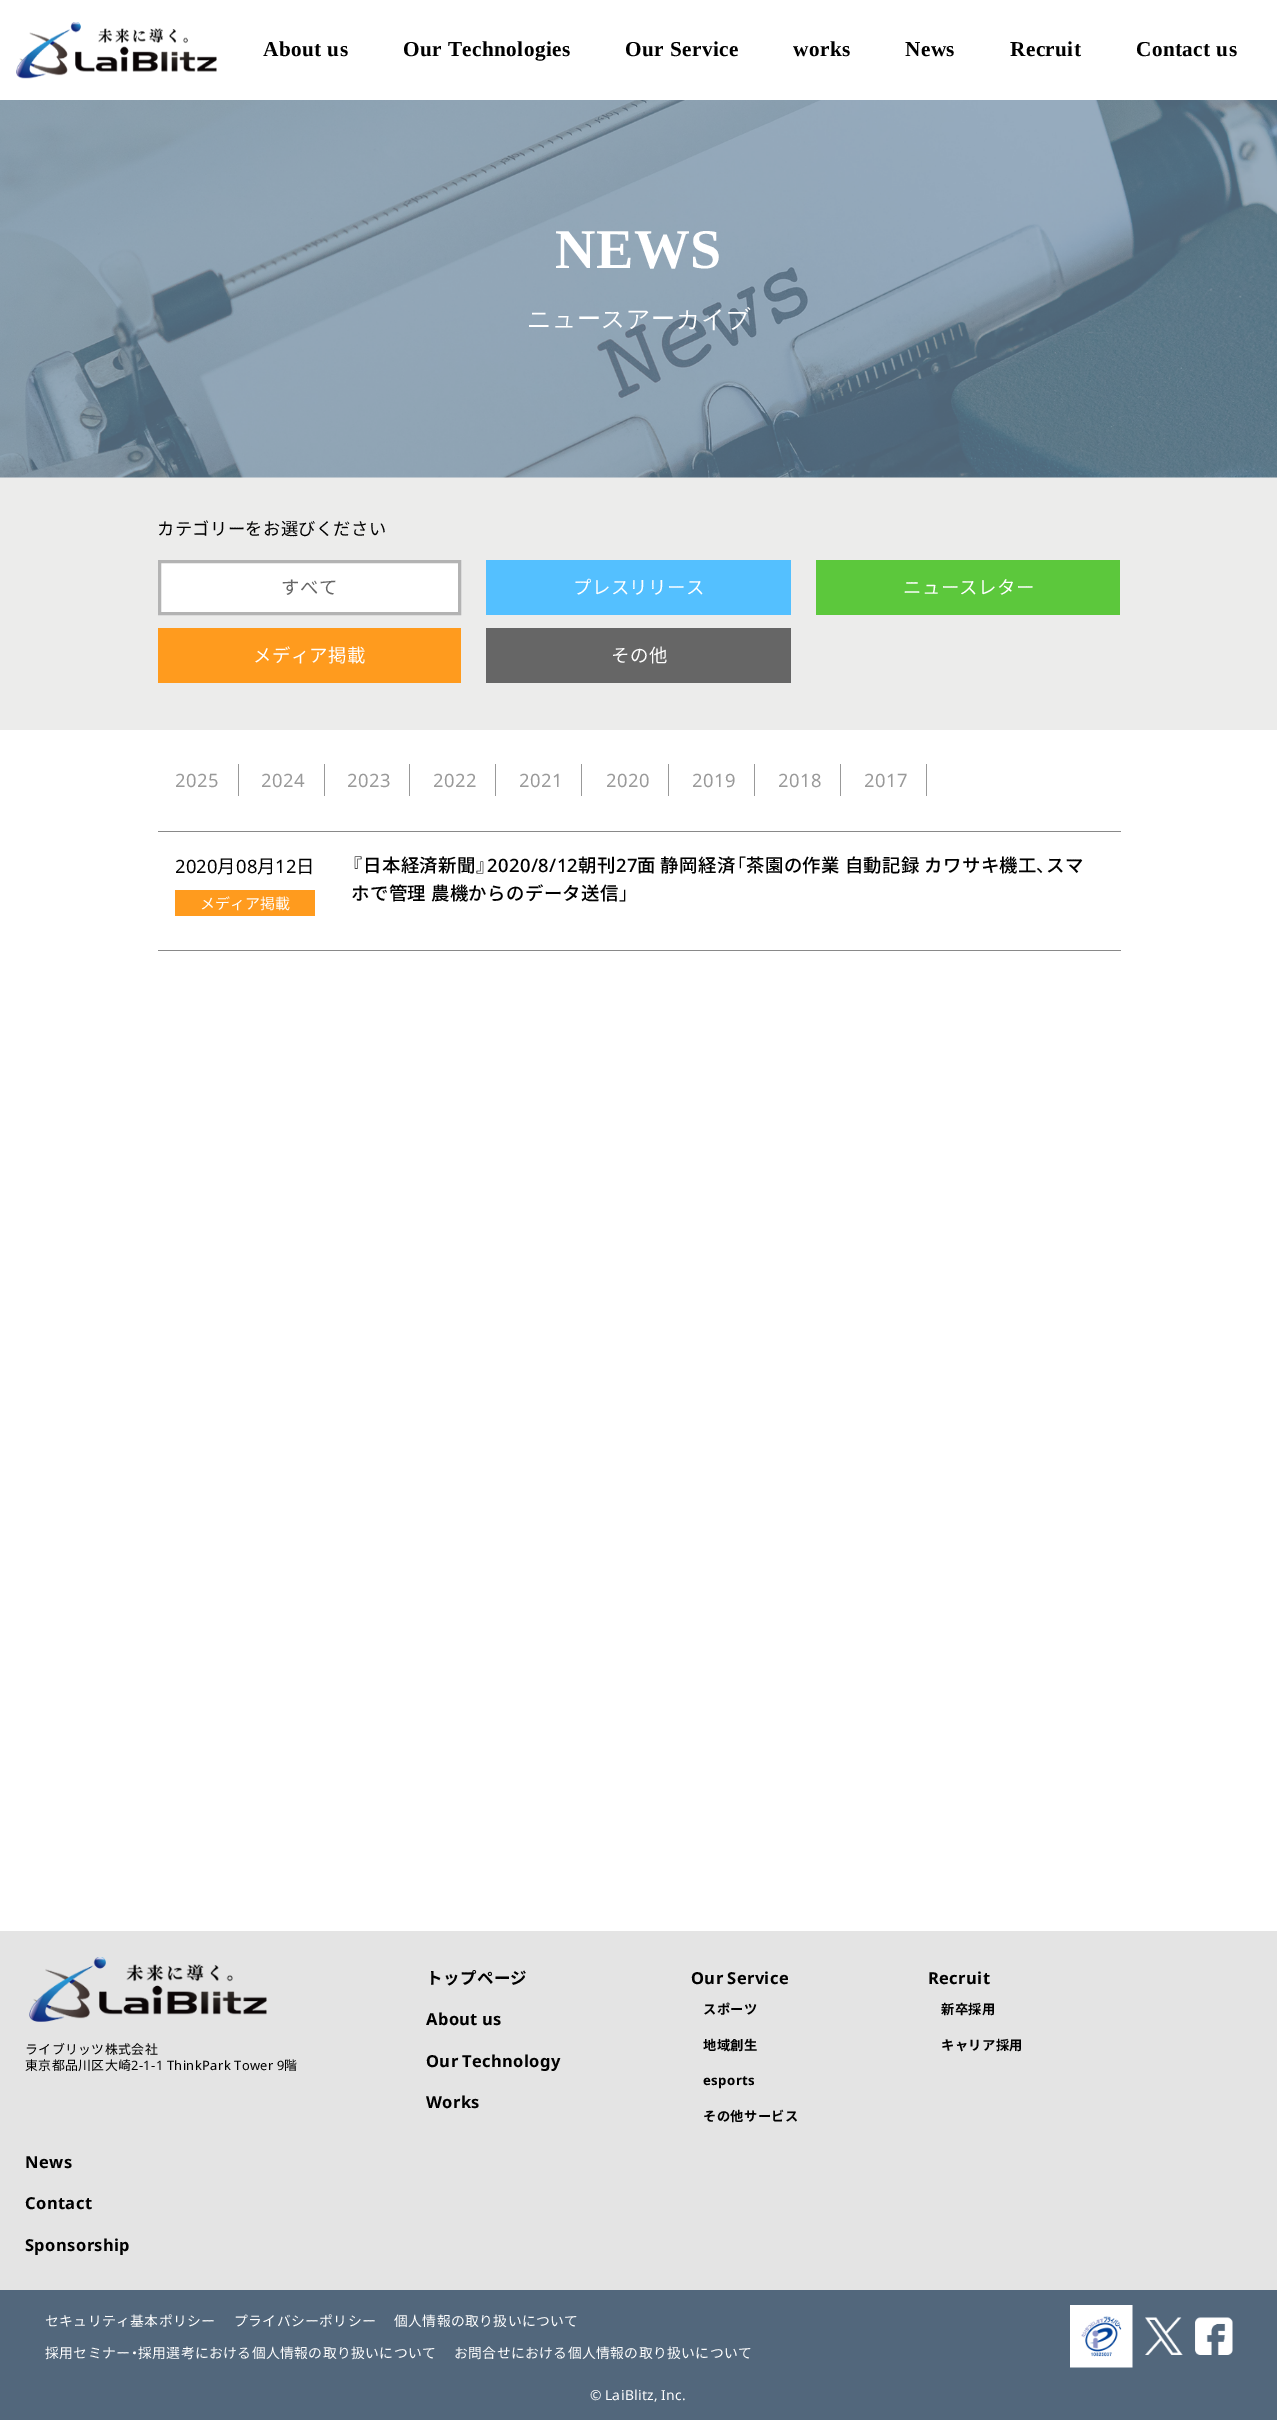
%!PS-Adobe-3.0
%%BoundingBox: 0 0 1277 2420
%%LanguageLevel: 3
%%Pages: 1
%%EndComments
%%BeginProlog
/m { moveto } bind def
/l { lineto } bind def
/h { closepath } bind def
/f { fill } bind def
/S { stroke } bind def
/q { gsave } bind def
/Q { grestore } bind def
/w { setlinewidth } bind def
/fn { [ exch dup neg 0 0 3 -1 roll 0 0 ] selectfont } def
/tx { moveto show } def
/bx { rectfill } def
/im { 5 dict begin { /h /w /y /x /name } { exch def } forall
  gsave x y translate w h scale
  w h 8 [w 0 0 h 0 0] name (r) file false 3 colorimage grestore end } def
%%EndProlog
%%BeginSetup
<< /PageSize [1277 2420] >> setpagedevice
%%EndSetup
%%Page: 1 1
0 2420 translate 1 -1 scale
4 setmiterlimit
1 setgray
0 0 1277 2420 bx
(image0.raw) 16 22 201 57 im
/LiberationSerif-Bold 21.25 fn
0 setgray
263 56 m 0.4 0 (About us) ashow
403 56 m 0.4 0 (Our Technologies) ashow
625 56 m 0.4 0 (Our Service) ashow
793 56 m 0.4 0 (works) ashow
905 56 m 0.4 0 (News) ashow
1010 56 m 0.4 0 (Recruit) ashow
1136 56 m 0.4 0 (Contact us) ashow
0.925 0.925 0.922 setrgbcolor
0 477 1277 253 bx
(image1.raw) 0 100 1277 378 im
/LiberationSerif-Bold 56 fn
1 setgray
555 268 m 0.4 0 (NEWS) ashow
/WenQuanYiZenHei-Medium 24 fn
527 327 m 0.4 0 (ニュースアーカイブ) ashow
/NotoSansCJKJP-Regular 17.25 fn
0 setgray
157 535 m 0.4 0 (カテゴリーをお選びください) ashow
1 setgray
159.5 561.5 m 459.5 561.5 l 459.5 613.5 l 159.5 613.5 l h q f Q
0.702 setgray
3 w
S
/NotoSansCJKJP-Regular 18.4 fn
0.4 setgray
281 594 m 0.4 0 (すべて) ashow
0.329 0.753 1 setrgbcolor
486 560 305 55 bx
1 setgray
573 594 m 0.4 0 (プレスリリース) ashow
0.361 0.784 0.235 setrgbcolor
816 560 304 55 bx
1 setgray
903 594 m 0.4 0 (ニュースレター) ashow
1 0.608 0.118 setrgbcolor
158 628 303 55 bx
1 setgray
253 662 m 0.4 0 (メディア掲載) ashow
0.4 setgray
486 628 305 55 bx
1 setgray
611 662 m 0.4 0 (その他) ashow
0.6 setgray
238 764 1 32 bx
/NotoSans-Regular 18.4 fn
175 787 m 0.4 0 (2025) ashow
324 764 1 32 bx
261 787 m 0.4 0 (2024) ashow
409 764 1 32 bx
347 787 m 0.4 0 (2023) ashow
495 764 1 32 bx
433 787 m 0.4 0 (2022) ashow
581 764 1 32 bx
519 787 m 0.4 0 (2021) ashow
668 764 1 32 bx
606 787 m 0.4 0 (2020) ashow
754 764 1 32 bx
692 787 m 0.4 0 (2019) ashow
840 764 1 32 bx
778 787 m 0.4 0 (2018) ashow
926 764 1 32 bx
864 787 m 0.4 0 (2017) ashow
0.537 setgray
158 831 963 1 bx
158 950 963 1 bx
0 setgray
(2020) 175 873 tx
/NotoSansCJKJP-Regular 18.4 fn
(月) 217 873 tx
/NotoSans-Regular 18.4 fn
(08) 236 873 tx
/NotoSansCJKJP-Regular 18.4 fn
(月) 257 873 tx
/NotoSans-Regular 18.4 fn
(12) 275 873 tx
/NotoSansCJKJP-Regular 18.4 fn
(日) 296 873 tx
1 0.608 0.118 setrgbcolor
175 890 140 26 bx
/NotoSansCJKJP-Regular 15 fn
1 setgray
(メディア掲載) 200 909 tx
/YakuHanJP-Regular 18.4 fn
0 setgray
351 872 m 0.4 0 (『) ashow
/NotoSansCJKJP-Medium 18.4 fn
363 872 m 0.4 0 (日本経済新聞) ashow
/YakuHanJP-Regular 18.4 fn
476 872 m 0.4 0 (』) ashow
/NotoSans-Medium 18.4 fn
487 872 m 0.4 0 (2020/8/12) ashow
/NotoSansCJKJP-Medium 18.4 fn
578 872 m 0.4 0 (朝刊) ashow
/NotoSans-Medium 18.4 fn
616 872 m 0.4 0 (27) ashow
/NotoSansCJKJP-Medium 18.4 fn
637 872 m 0.4 0 (面 静岡経済) ashow
/YakuHanJP-Regular 18.4 fn
736 872 m 0.4 0 (「) ashow
/NotoSansCJKJP-Medium 18.4 fn
746 872 m 0.4 0 (茶園の作業 自動記録 カワサキ機工) ashow
/YakuHanJP-Regular 18.4 fn
1036 872 m 0.4 0 (、) ashow
/NotoSansCJKJP-Medium 18.4 fn
1046 872 m 0.4 0 (スマ) ashow
351 900 m 0.4 0 (ホで管理 農機からのデータ送信) ashow
/YakuHanJP-Regular 18.4 fn
619 900 m 0.4 0 (」) ashow
0.894 setgray
0 1931 1277 359 bx
/NotoSansCJKJP-Bold 16.5 fn
0 setgray
426 1984 m 0.4 0 (トップページ) ashow
/NotoSans-Bold 16.5 fn
426 2025 m -1 0 32 0.4 0 (About us) awidthshow
426 2067 m -1 0 32 0.4 0 (Our Technology) awidthshow
426 2108 m 0.4 0 (Works) ashow
691 1984 m -1 0 32 0.4 0 (Our Service) awidthshow
/NotoSansCJKJP-Bold 13.25 fn
703 2014 m 0.4 0 (スポーツ) ashow
703 2050 m 0.4 0 (地域創生) ashow
/NotoSans-Bold 13.25 fn
703 2085 m 0.4 0 (esports) ashow
/NotoSansCJKJP-Bold 13.25 fn
703 2121 m 0.4 0 (その他サービス) ashow
/NotoSans-Bold 16.5 fn
928 1984 m 0.4 0 (Recruit) ashow
/NotoSansCJKJP-Bold 13.25 fn
941 2014 m 0.4 0 (新卒採用) ashow
941 2050 m 0.4 0 (キャリア採用) ashow
(image2.raw) 29 1957 238 65 im
/NotoSansCJKJP-Regular 12.9 fn
25 2054 m 0.4 0 (ライブリッツ株式会社) ashow
25 2070 m 0.4 0 (東京都品川区大崎) ashow
/NotoSans-Regular 12.9 fn
131 2070 m -0.5 0 32 0.4 0 (2-1-1 ThinkPark Tower 9) awidthshow
/NotoSansCJKJP-Regular 12.9 fn
284 2070 m 0.4 0 (階) ashow
/NotoSans-Bold 16.5 fn
25 2168 m 0.4 0 (News) ashow
25 2209 m 0.4 0 (Contact) ashow
25 2251 m 0.4 0 (Sponsorship) ashow
0.322 0.404 0.486 setrgbcolor
0 2290 1277 130 bx
/NotoSansCJKJP-Regular 13.8 fn
1 setgray
45 2326 m 0.4 0 (セキュリティ基本ポリシー) ashow
234 2326 m 0.4 0 (プライバシーポリシー) ashow
394 2326 m 0.4 0 (個人情報の取り扱いについて) ashow
45 2358 m 0.4 0 (採用セミナー) ashow
/YakuHanJP-Regular 13.8 fn
131 2358 m 0.4 0 (・) ashow
/NotoSansCJKJP-Regular 13.8 fn
138 2358 m 0.4 0 (採用選考における個人情報の取り扱いについて) ashow
454 2358 m 0.4 0 (お問合せにおける個人情報の取り扱いについて) ashow
(image3.raw) 1070 2305 63 63 im
(image4.raw) 1145 2317 38 38 im
(image5.raw) 1195 2317 38 38 im
/NotoSans-Regular 13.8 fn
590 2400 m -1 0 32 0.4 0 (© LaiBlitz, Inc.) awidthshow
showpage
%%EOF
